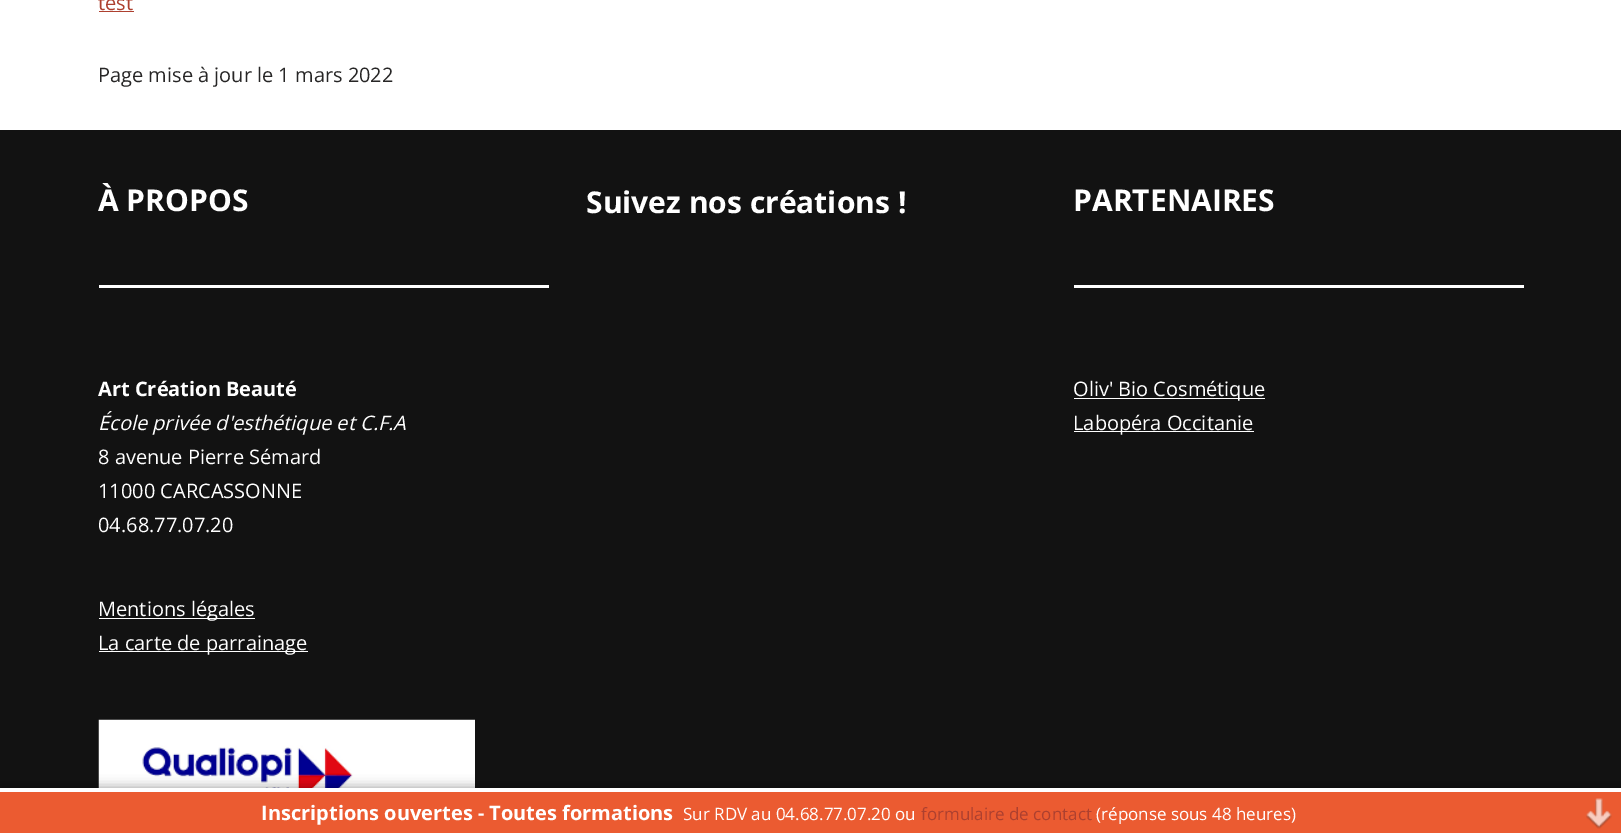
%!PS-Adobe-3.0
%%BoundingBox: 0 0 1621 833
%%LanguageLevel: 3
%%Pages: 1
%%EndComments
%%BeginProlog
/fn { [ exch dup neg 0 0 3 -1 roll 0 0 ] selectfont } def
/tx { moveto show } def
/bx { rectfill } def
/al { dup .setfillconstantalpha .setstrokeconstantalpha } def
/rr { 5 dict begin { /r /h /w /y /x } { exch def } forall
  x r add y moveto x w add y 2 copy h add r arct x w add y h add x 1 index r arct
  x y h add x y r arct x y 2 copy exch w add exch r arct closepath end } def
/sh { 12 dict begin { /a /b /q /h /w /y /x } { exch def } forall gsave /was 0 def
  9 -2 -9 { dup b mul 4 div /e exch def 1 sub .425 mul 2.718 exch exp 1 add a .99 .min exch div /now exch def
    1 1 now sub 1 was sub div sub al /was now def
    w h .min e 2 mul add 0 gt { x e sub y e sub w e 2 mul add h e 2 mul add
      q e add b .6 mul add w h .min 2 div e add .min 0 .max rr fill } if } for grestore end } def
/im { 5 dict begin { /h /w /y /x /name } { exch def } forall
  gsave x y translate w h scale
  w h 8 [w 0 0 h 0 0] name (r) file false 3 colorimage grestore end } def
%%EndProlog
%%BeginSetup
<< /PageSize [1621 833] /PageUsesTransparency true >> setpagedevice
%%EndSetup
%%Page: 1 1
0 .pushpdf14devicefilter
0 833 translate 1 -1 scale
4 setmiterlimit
1 setgray
0 0 1621 833 bx
/OpenSans-Regular 20 fn
0.678 0.251 0.184 setrgbcolor
(test) 98 10 tx
99 11 35 1 bx
0.153 0.149 0.149 setrgbcolor
(Page mise à jour le 1 mars 2022) 98 82 tx
0.071 setgray
0 130 1621 658 bx
/OpenSans-Bold 30 fn
1 setgray
(À PROPOS) 98 211 tx
99 285 450 3 bx
/OpenSans-Bold 20 fn
(Art Création Beauté) 98 396 tx
/OpenSans-Italic 20 fn
(École privée d'esthétique et C.F.A) 98 430 tx
/OpenSans-Regular 20 fn
(8 avenue Pierre Sémard) 98 464 tx
(11000 CARCASSONNE) 98 498 tx
(04.68.77.07.20) 98 532 tx
99 618 156 1 bx
(Mentions légales) 98 616 tx
99 651 209 1 bx
(La carte de parrainage) 98 650 tx
(image0.raw) 98 719 377 69 im
/OpenSans-Bold 30 fn
(Suivez nos créations !) 586 213 tx
(PARTENAIRES) 1073 211 tx
1074 285 450 3 bx
1074 398 191 1 bx
/OpenSans-Regular 20 fn
(Oliv' Bio Cosmétique) 1073 396 tx
1074 431 180 1 bx
(Labopéra Occitanie) 1073 430 tx
0 setgray
0 788 1621 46 0 6 0.4 sh
0.922 0.357 0.192 setrgbcolor
0 792 1621 41 bx
1 setgray
0 788 1621 4 bx
/OpenSans-Bold 20 fn
(Inscriptions ouvertes - Toutes formations) 261 820 tx
/OpenSans-Regular 17 fn
(Sur RDV au 04.68.77.07.20 ou) 683 820 tx
0.678 0.251 0.184 setrgbcolor
(formulaire de contact) 921 820 tx
1 setgray
(\(réponse sous 48 heures\)) 1096 820 tx
(image1.raw) 1586 798 26 31 im
.poppdf14devicefilter showpage
%%EOF
